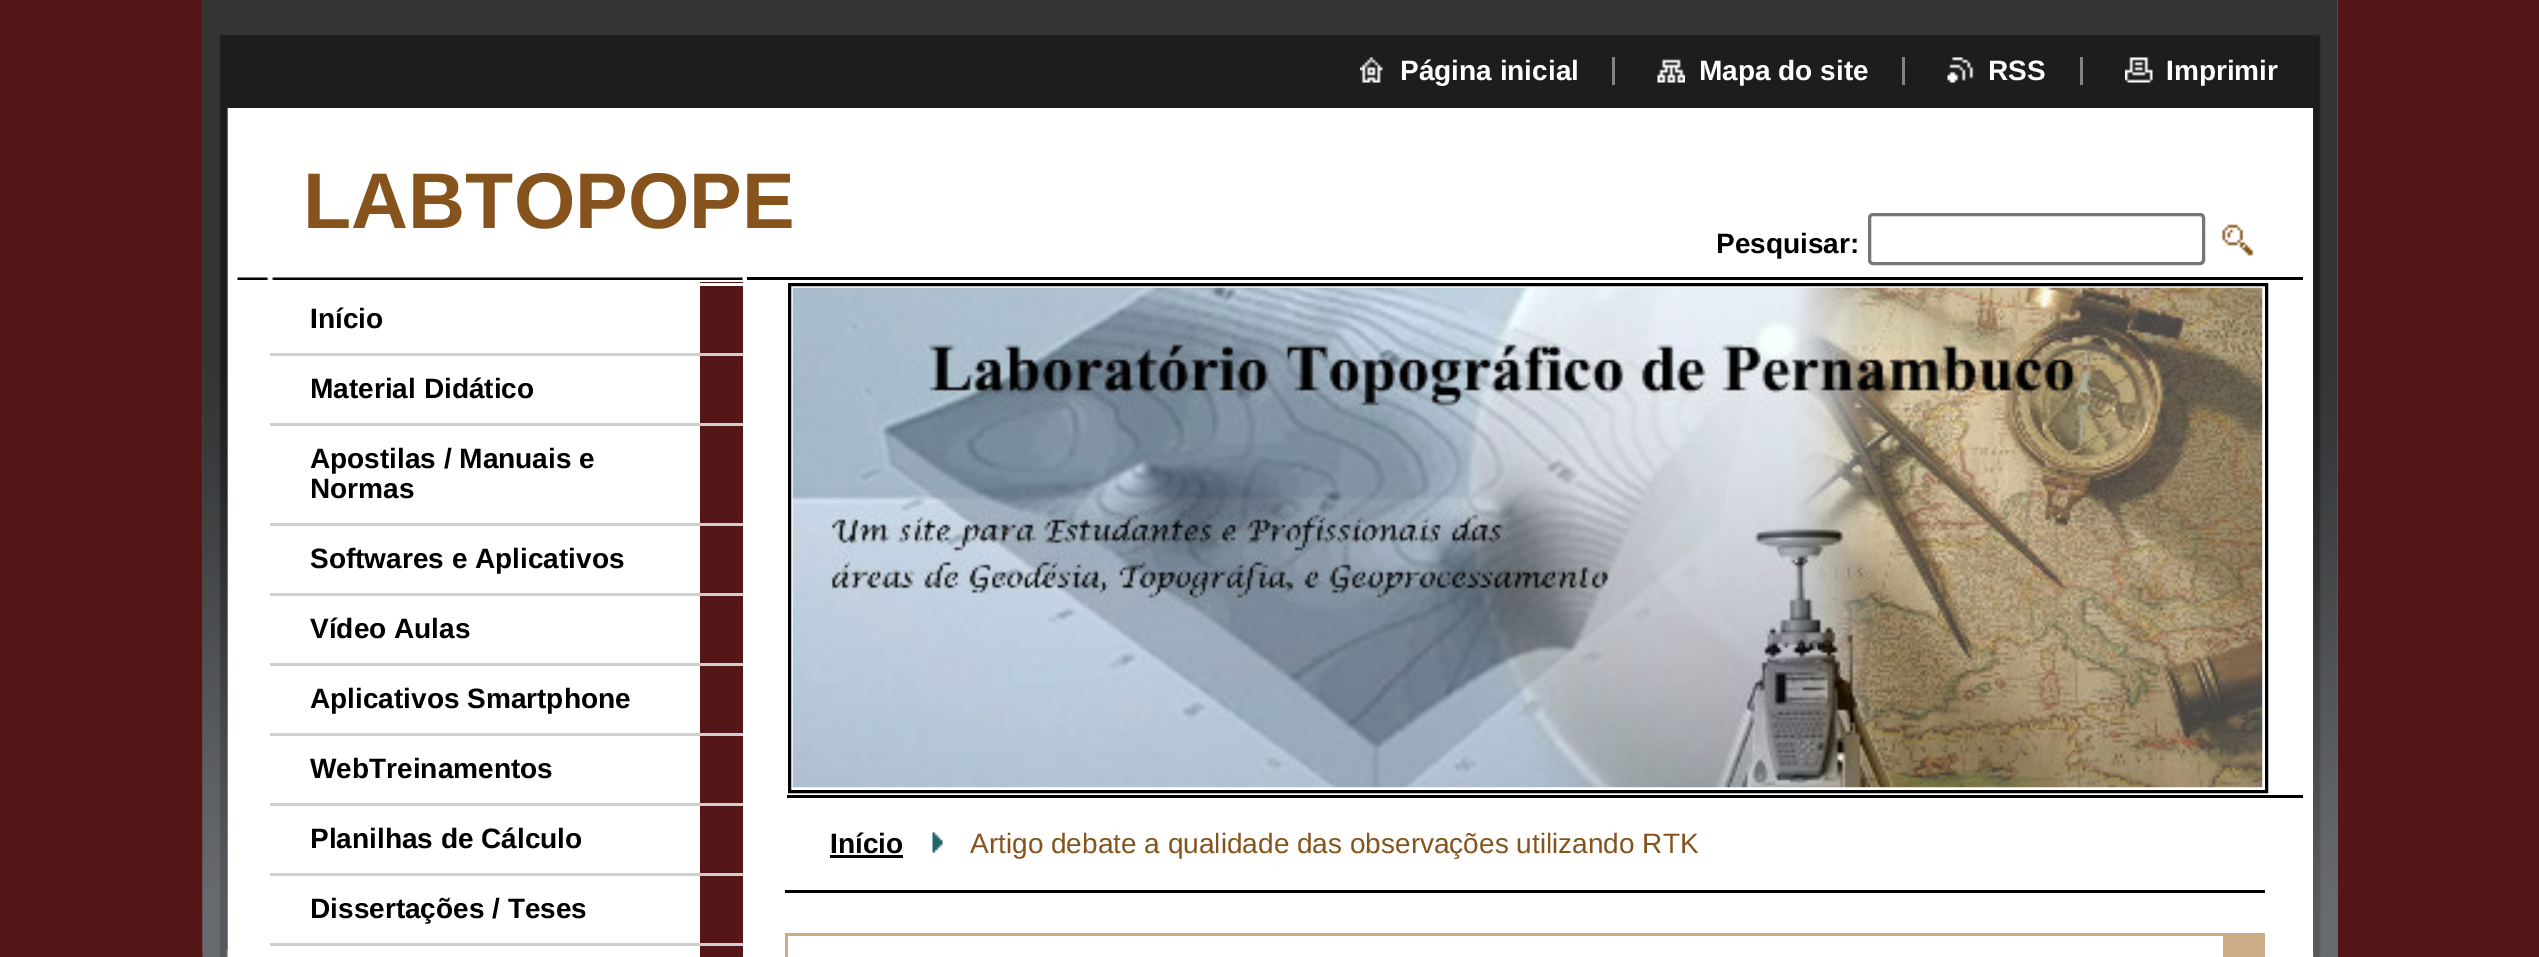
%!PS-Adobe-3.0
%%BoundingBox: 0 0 2539 957
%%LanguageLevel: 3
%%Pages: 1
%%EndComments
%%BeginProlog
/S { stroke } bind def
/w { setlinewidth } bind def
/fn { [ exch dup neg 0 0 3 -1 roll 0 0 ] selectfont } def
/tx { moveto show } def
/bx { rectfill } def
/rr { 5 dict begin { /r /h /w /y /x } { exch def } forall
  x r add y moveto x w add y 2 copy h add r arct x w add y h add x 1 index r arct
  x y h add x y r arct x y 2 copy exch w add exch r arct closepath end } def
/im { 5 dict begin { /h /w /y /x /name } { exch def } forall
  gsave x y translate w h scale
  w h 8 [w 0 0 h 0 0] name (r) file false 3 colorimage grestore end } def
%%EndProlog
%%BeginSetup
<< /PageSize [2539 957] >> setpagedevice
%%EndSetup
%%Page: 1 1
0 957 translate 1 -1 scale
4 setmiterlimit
0.329 0.086 0.09 setrgbcolor
0 0 2539 957 bx
0.404 0.416 0.431 setrgbcolor
2321 0 17 957 bx
(image0.raw) 202 0 2119 957 im
(image1.raw) 202 0 2136 950 im
1 setgray
228 108 2085 849 bx
0.196 0.204 0.212 setrgbcolor
228 34 2085 1 bx
0.106 0.114 0.122 setrgbcolor
228 35 2085 73 bx
(image2.raw) 1360 57 23 26 im
/LiberationSans-Bold 28 fn
1 setgray
(Página inicial) 1400 80 tx
(image3.raw) 1657 59 28 24 im
(Mapa do site) 1699 80 tx
0.51 setgray
1612 57 3 28 bx
(image4.raw) 1947 57 27 26 im
1 setgray
(RSS) 1988 80 tx
0.51 setgray
1902 57 3 28 bx
(image5.raw) 2125 57 28 26 im
1 setgray
(Imprimir) 2166 80 tx
0.51 setgray
2080 57 3 28 bx
/LiberationSans-Bold 79 fn
0.525 0.325 0.11 setrgbcolor
(LABTOPOPE) 303 228 tx
/LiberationSans-Bold 28 fn
0 setgray
(Pesquisar:) 1716 253 tx
0.463 setgray
3 w
1869.5 214.5 334 49 3.5 rr S
(image6.raw) 2221 224 33 32 im
(image7.raw) 237 277 506 3 im
0.329 0.086 0.09 setrgbcolor
700 282 43 675 bx
1 setgray
700 283 43 3 bx
0.812 setgray
270 353 473 3 bx
0 setgray
(Início) 310 328 tx
0.812 setgray
270 423 473 3 bx
0 setgray
(Material Didático) 310 398 tx
0.812 setgray
270 523 473 3 bx
0 setgray
(Apostilas / Manuais e) 310 468 tx
(Normas) 310 498 tx
0.812 setgray
270 593 473 3 bx
0 setgray
(Softwares e Aplicativos) 310 568 tx
0.812 setgray
270 663 473 3 bx
0 setgray
(Vídeo Aulas) 310 638 tx
0.812 setgray
270 733 473 3 bx
0 setgray
(Aplicativos Smartphone) 310 708 tx
0.812 setgray
270 803 473 3 bx
0 setgray
(WebTreinamentos) 310 778 tx
0.812 setgray
270 873 473 3 bx
0 setgray
(Planilhas de Cálculo) 310 848 tx
0.812 setgray
270 943 473 3 bx
0 setgray
(Dissertações / Teses) 310 918 tx
747 277 1556 3 bx
787 795 1516 3 bx
789.5 284.5 1477 507 rectstroke
(image8.raw) 792 287 1471 501 im
785 890 1480 3 bx
(Início) 830 853 tx
830 855 73 3 bx
(image9.raw) 932 832 11 21 im
/LiberationSans-Regular 28 fn
0.525 0.325 0.11 setrgbcolor
(Artigo debate a qualidade das observações utilizando RTK) 970 853 tx
0.808 0.675 0.533 setrgbcolor
785 933 1438 3 bx
2223 933 42 24 bx
785 933 3 24 bx
showpage
%%EOF
